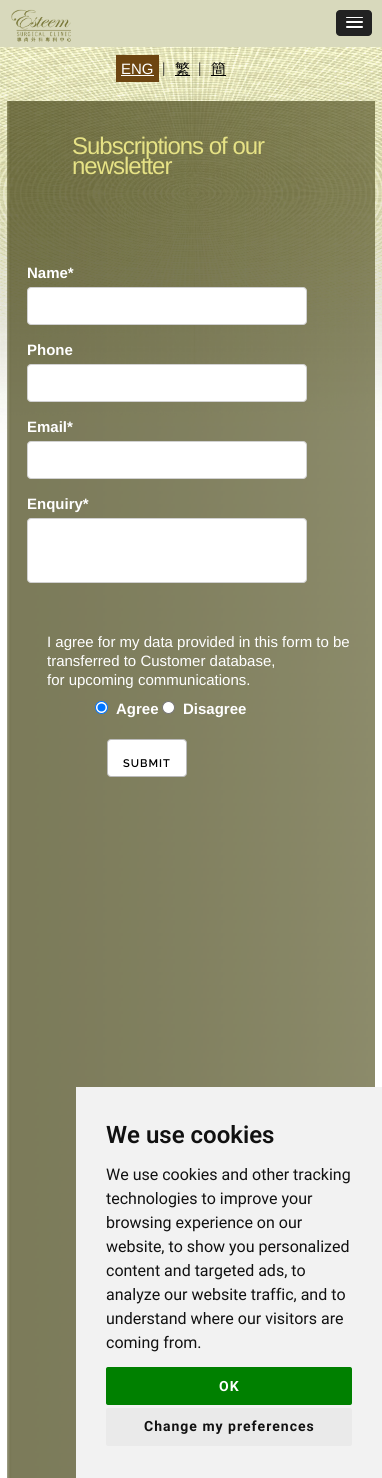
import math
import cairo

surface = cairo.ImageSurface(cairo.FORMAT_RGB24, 382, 1478)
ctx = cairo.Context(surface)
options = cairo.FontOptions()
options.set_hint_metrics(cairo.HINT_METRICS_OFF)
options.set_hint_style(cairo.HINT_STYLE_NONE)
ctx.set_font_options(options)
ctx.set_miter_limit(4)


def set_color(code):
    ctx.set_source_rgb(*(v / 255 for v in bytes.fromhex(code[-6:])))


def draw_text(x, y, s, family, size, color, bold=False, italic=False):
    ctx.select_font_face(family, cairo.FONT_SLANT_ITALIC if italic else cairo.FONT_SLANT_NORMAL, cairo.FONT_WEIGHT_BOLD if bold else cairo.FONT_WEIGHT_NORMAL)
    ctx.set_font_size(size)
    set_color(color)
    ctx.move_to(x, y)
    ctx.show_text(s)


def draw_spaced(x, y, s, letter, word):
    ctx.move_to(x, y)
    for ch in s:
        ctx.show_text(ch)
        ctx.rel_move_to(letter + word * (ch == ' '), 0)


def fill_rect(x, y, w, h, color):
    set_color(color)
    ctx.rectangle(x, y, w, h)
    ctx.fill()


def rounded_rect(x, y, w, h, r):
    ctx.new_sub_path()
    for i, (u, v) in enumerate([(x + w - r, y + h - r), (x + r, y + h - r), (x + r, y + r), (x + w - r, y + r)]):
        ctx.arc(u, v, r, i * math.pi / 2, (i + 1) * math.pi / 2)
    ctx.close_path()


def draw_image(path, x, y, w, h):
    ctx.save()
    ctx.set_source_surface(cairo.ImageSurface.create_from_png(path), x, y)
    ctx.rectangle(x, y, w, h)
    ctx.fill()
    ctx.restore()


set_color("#ffffff")
ctx.paint()
draw_image("assets/img1.png", 0, 47, 382, 393)
fill_rect(0, 0, 382, 47, "#d8d9bc")
draw_image("assets/img2.png", 11, 9, 60, 33)
set_color("#222222")
rounded_rect(336, 10, 36, 26, 4)
ctx.fill()
set_color("#1a1a1a")
rounded_rect(346, 18, 17, 1, 0.5)
ctx.fill()
set_color("#ffffff")
rounded_rect(346, 17, 17, 1, 0.5)
ctx.fill()
set_color("#1a1a1a")
ctx.new_path()
ctx.move_to(346, 22.5)
ctx.curve_to(345, 24.5, 349.5, 24, 349.5, 24)
ctx.line_to(359.5, 24)
ctx.curve_to(359.5, 24, 364, 24.5, 363, 22.5)
ctx.curve_to(362, 23.5, 356, 23, 354.5, 23)
ctx.curve_to(353, 23, 347, 23.5, 346, 22.5)
ctx.close_path()
ctx.fill()
set_color("#ffffff")
rounded_rect(346, 21, 17, 2, 1)
ctx.fill()
set_color("#1a1a1a")
ctx.new_path()
ctx.move_to(346, 27.5)
ctx.curve_to(345, 29.5, 349.5, 29, 349.5, 29)
ctx.line_to(359.5, 29)
ctx.curve_to(359.5, 29, 364, 29.5, 363, 27.5)
ctx.curve_to(362, 28.5, 356, 28, 354.5, 28)
ctx.curve_to(353, 28, 347, 28.5, 346, 27.5)
ctx.close_path()
ctx.fill()
set_color("#ffffff")
rounded_rect(346, 26, 17, 2, 1)
ctx.fill()
fill_rect(116, 55, 43, 27, "#6d4511")
draw_text(121, 74, "ENG", "Liberation Sans", 15, "#ffffff")
fill_rect(121, 75, 33, 1, "#ffffff")
draw_text(162, 74, "|", "Raleway", 15, "#222222")
fill_rect(175, 75, 15, 1, "#000000")
draw_text(175, 74, "繁", "WenQuanYi Zen Hei Medium", 15, "#000000")
draw_text(198, 74, "|", "Raleway", 15, "#222222")
fill_rect(211, 75, 15, 1, "#000000")
draw_text(211, 74, "簡", "WenQuanYi Zen Hei Medium", 15, "#000000")
draw_image("assets/img3.png", 7, 101, 368, 1377)
ctx.select_font_face("Liberation Sans")
ctx.set_font_size(24)
set_color("#e6e285")
draw_spaced(72, 154, "Subscriptions of our", -1, 0)
draw_spaced(72, 174, "newsletter", -1, 0)
draw_text(27, 278, "Name*", "Liberation Sans", 15, "#ffffff", bold=True)
rounded_rect(27.5, 287.5, 279, 37, 3.5)
ctx.fill_preserve()
set_color("#d1d1d1")
ctx.set_line_width(1)
ctx.stroke()
draw_text(27, 355, "Phone", "Liberation Sans", 15, "#ffffff", bold=True)
rounded_rect(27.5, 364.5, 279, 37, 3.5)
ctx.fill_preserve()
set_color("#d1d1d1")
ctx.stroke()
draw_text(27, 432, "Email*", "Liberation Sans", 15, "#ffffff", bold=True)
rounded_rect(27.5, 441.5, 279, 37, 3.5)
ctx.fill_preserve()
set_color("#d1d1d1")
ctx.stroke()
draw_text(27, 509, "Enquiry*", "Liberation Sans", 15, "#ffffff", bold=True)
rounded_rect(27.5, 518.5, 279, 64, 3.5)
ctx.fill_preserve()
set_color("#d1d1d1")
ctx.stroke()
draw_text(47, 647, "I agree for my data provided in this form to be", "Liberation Sans", 15, "#ffffff")
draw_text(47, 666, "transferred to Customer database,", "Liberation Sans", 15, "#ffffff")
draw_text(47, 685, "for upcoming communications.", "Liberation Sans", 15, "#ffffff")
ctx.new_path()
ctx.arc(101.5, 707.5, 6, 0, 2 * math.pi)
ctx.fill_preserve()
set_color("#0075ff")
ctx.stroke()
ctx.arc(101.5, 707.5, 4, 0, 2 * math.pi)
ctx.fill()
draw_text(116, 714, "Agree", "Liberation Sans", 15, "#ffffff", bold=True)
ctx.new_path()
ctx.arc(168.5, 707.5, 6, 0, 2 * math.pi)
ctx.fill_preserve()
set_color("#767676")
ctx.stroke()
draw_text(183, 714, "Disagree", "Liberation Sans", 15, "#ffffff", bold=True)
rounded_rect(107.5, 739.5, 79, 37, 3.5)
ctx.fill_preserve()
set_color("#bbbbbb")
ctx.stroke()
ctx.select_font_face("Raleway SemiBold")
ctx.set_font_size(11)
set_color("#000000")
draw_spaced(123, 767, "SUBMIT", 1, 0)
fill_rect(76, 1087, 306, 391, "#f2f2f2")
draw_text(106, 1143, "We use cookies", "Roboto SemiBold", 24, "#111111")
draw_text(106, 1180, "We use cookies and other tracking", "Roboto", 16, "#111111")
draw_text(106, 1204, "technologies to improve your", "Roboto", 16, "#111111")
draw_text(106, 1228, "browsing experience on our", "Roboto", 16, "#111111")
draw_text(106, 1252, "website, to show you personalized", "Roboto", 16, "#111111")
draw_text(106, 1276, "content and targeted ads, to", "Roboto", 16, "#111111")
draw_text(106, 1300, "analyze our website traffic, and to", "Roboto", 16, "#111111")
draw_text(106, 1324, "understand where our visitors are", "Roboto", 16, "#111111")
draw_text(106, 1348, "coming from.", "Roboto", 16, "#111111")
set_color("#008000")
rounded_rect(106, 1367, 246, 38, 2)
ctx.fill()
ctx.select_font_face("Roboto", cairo.FONT_SLANT_NORMAL, cairo.FONT_WEIGHT_BOLD)
ctx.set_font_size(14)
set_color("#ffffff")
draw_spaced(219, 1391, "OK", 1, 0)
set_color("#eaeaea")
rounded_rect(106, 1408, 246, 38, 2)
ctx.fill()
set_color("#111111")
draw_spaced(144, 1431, "Change my preferences", 1, 0)
surface.write_to_png("output.png")
